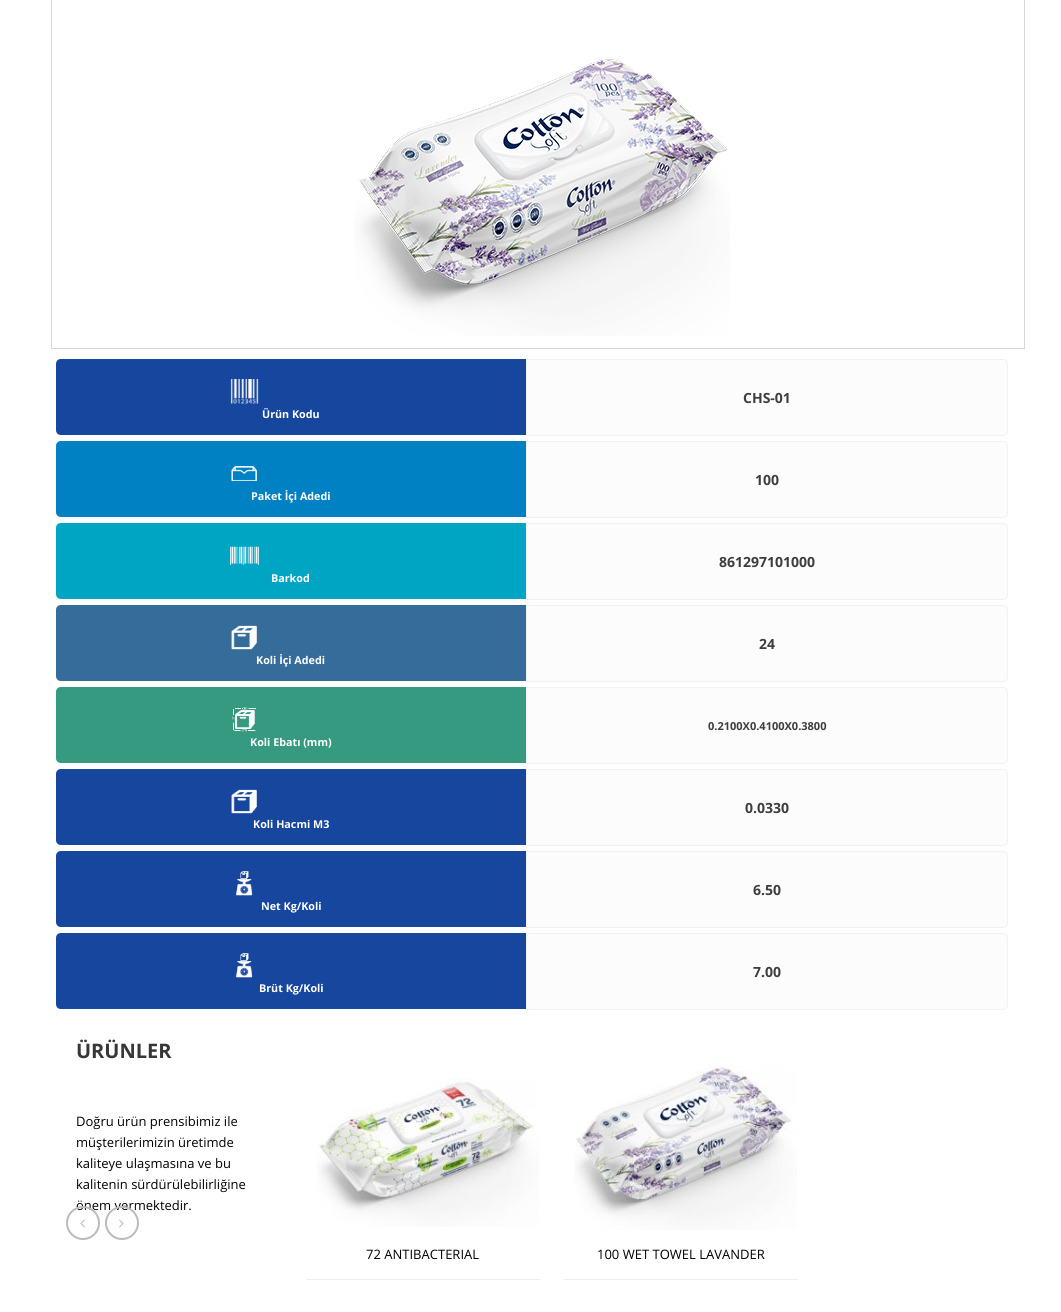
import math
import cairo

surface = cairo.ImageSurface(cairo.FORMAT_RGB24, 1061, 1312)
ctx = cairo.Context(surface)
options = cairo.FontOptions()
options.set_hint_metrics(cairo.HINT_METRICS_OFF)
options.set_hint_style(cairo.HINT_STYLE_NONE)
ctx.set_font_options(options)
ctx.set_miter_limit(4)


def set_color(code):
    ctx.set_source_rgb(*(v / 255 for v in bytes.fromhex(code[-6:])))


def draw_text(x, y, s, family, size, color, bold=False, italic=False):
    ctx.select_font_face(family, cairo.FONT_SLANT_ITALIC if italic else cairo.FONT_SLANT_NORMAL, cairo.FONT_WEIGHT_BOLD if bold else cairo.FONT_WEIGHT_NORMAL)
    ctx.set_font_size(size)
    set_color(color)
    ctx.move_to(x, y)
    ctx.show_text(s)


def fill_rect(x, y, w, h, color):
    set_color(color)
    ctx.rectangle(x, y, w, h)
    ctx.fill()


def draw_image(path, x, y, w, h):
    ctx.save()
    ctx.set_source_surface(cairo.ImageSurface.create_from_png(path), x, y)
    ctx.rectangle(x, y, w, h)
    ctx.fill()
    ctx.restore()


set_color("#ffffff")
ctx.paint()
ctx.rectangle(51.5, -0.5, 973, 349)
set_color("#d7d7d7")
ctx.set_line_width(1)
ctx.stroke()
draw_image("assets/img1.png", 354, 59, 376, 277)
set_color("#fcfcfc")
ctx.new_path()
ctx.move_to(526.5, 359.5)
ctx.line_to(1003, 359.5)
ctx.curve_to(1005.5, 359.5, 1007.5, 361.5, 1007.5, 364)
ctx.line_to(1007.5, 431)
ctx.curve_to(1007.5, 433.5, 1005.5, 435.5, 1003, 435.5)
ctx.line_to(526.5, 435.5)
ctx.close_path()
ctx.fill_preserve()
set_color("#f1f1f1")
ctx.stroke()
draw_text(743, 403, "CHS-01", "Open Sans", 14, "#3e3e3e", bold=True)
set_color("#17469e")
ctx.new_path()
ctx.move_to(61, 359)
ctx.line_to(526, 359)
ctx.line_to(526, 435)
ctx.line_to(61, 435)
ctx.curve_to(58, 435, 56, 433, 56, 430)
ctx.line_to(56, 364)
ctx.curve_to(56, 361, 58, 359, 61, 359)
ctx.close_path()
ctx.fill()
draw_image("assets/img2.png", 230, 379, 29, 25)
draw_text(262, 418, "Ürün Kodu", "Open Sans", 10.75, "#ffffff", bold=True)
set_color("#fcfcfc")
ctx.new_path()
ctx.move_to(526.5, 441.5)
ctx.line_to(1003, 441.5)
ctx.curve_to(1005.5, 441.5, 1007.5, 443.5, 1007.5, 446)
ctx.line_to(1007.5, 513)
ctx.curve_to(1007.5, 515.5, 1005.5, 517.5, 1003, 517.5)
ctx.line_to(526.5, 517.5)
ctx.close_path()
ctx.fill_preserve()
set_color("#f1f1f1")
ctx.stroke()
draw_text(755, 485, "100", "Open Sans", 14, "#3e3e3e", bold=True)
set_color("#0081c3")
ctx.new_path()
ctx.move_to(61, 441)
ctx.line_to(526, 441)
ctx.line_to(526, 517)
ctx.line_to(61, 517)
ctx.curve_to(58, 517, 56, 515, 56, 512)
ctx.line_to(56, 446)
ctx.curve_to(56, 443, 58, 441, 61, 441)
ctx.close_path()
ctx.fill()
draw_image("assets/img3.png", 231, 466, 26, 15)
draw_text(251, 500, "Paket İçi Adedi", "Open Sans", 10.75, "#ffffff", bold=True)
set_color("#fcfcfc")
ctx.new_path()
ctx.move_to(526.5, 523.5)
ctx.line_to(1003, 523.5)
ctx.curve_to(1005.5, 523.5, 1007.5, 525.5, 1007.5, 528)
ctx.line_to(1007.5, 595)
ctx.curve_to(1007.5, 597.5, 1005.5, 599.5, 1003, 599.5)
ctx.line_to(526.5, 599.5)
ctx.close_path()
ctx.fill_preserve()
set_color("#f1f1f1")
ctx.stroke()
draw_text(719, 567, "861297101000", "Open Sans", 14, "#3e3e3e", bold=True)
set_color("#00a5c3")
ctx.new_path()
ctx.move_to(61, 523)
ctx.line_to(526, 523)
ctx.line_to(526, 599)
ctx.line_to(61, 599)
ctx.curve_to(58, 599, 56, 597, 56, 594)
ctx.line_to(56, 528)
ctx.curve_to(56, 525, 58, 523, 61, 523)
ctx.close_path()
ctx.fill()
draw_image("assets/img4.png", 230, 546, 29, 19)
draw_text(271, 582, "Barkod", "Open Sans", 10.75, "#ffffff", bold=True)
set_color("#fcfcfc")
ctx.new_path()
ctx.move_to(526.5, 605.5)
ctx.line_to(1003, 605.5)
ctx.curve_to(1005.5, 605.5, 1007.5, 607.5, 1007.5, 610)
ctx.line_to(1007.5, 677)
ctx.curve_to(1007.5, 679.5, 1005.5, 681.5, 1003, 681.5)
ctx.line_to(526.5, 681.5)
ctx.close_path()
ctx.fill_preserve()
set_color("#f1f1f1")
ctx.stroke()
draw_text(759, 649, "24", "Open Sans", 14, "#3e3e3e", bold=True)
set_color("#366c9a")
ctx.new_path()
ctx.move_to(61, 605)
ctx.line_to(526, 605)
ctx.line_to(526, 681)
ctx.line_to(61, 681)
ctx.curve_to(58, 681, 56, 679, 56, 676)
ctx.line_to(56, 610)
ctx.curve_to(56, 607, 58, 605, 61, 605)
ctx.close_path()
ctx.fill()
draw_image("assets/img5.png", 231, 625, 26, 25)
draw_text(256, 664, "Koli İçi Adedi", "Open Sans", 10.75, "#ffffff", bold=True)
set_color("#fcfcfc")
ctx.new_path()
ctx.move_to(526.5, 687.5)
ctx.line_to(1003, 687.5)
ctx.curve_to(1005.5, 687.5, 1007.5, 689.5, 1007.5, 692)
ctx.line_to(1007.5, 759)
ctx.curve_to(1007.5, 761.5, 1005.5, 763.5, 1003, 763.5)
ctx.line_to(526.5, 763.5)
ctx.close_path()
ctx.fill_preserve()
set_color("#f1f1f1")
ctx.stroke()
draw_text(708, 730, "0.2100X0.4100X0.3800", "Open Sans", 11, "#3e3e3e", bold=True)
set_color("#369a81")
ctx.new_path()
ctx.move_to(61, 687)
ctx.line_to(526, 687)
ctx.line_to(526, 763)
ctx.line_to(61, 763)
ctx.curve_to(58, 763, 56, 761, 56, 758)
ctx.line_to(56, 692)
ctx.curve_to(56, 689, 58, 687, 61, 687)
ctx.close_path()
ctx.fill()
draw_image("assets/img6.png", 232, 707, 24, 25)
draw_text(250, 746, "Koli Ebatı (mm)", "Open Sans", 10.75, "#ffffff", bold=True)
set_color("#fcfcfc")
ctx.new_path()
ctx.move_to(526.5, 769.5)
ctx.line_to(1003, 769.5)
ctx.curve_to(1005.5, 769.5, 1007.5, 771.5, 1007.5, 774)
ctx.line_to(1007.5, 841)
ctx.curve_to(1007.5, 843.5, 1005.5, 845.5, 1003, 845.5)
ctx.line_to(526.5, 845.5)
ctx.close_path()
ctx.fill_preserve()
set_color("#f1f1f1")
ctx.stroke()
draw_text(745, 813, "0.0330", "Open Sans", 14, "#3e3e3e", bold=True)
set_color("#17469e")
ctx.new_path()
ctx.move_to(61, 769)
ctx.line_to(526, 769)
ctx.line_to(526, 845)
ctx.line_to(61, 845)
ctx.curve_to(58, 845, 56, 843, 56, 840)
ctx.line_to(56, 774)
ctx.curve_to(56, 771, 58, 769, 61, 769)
ctx.close_path()
ctx.fill()
draw_image("assets/img7.png", 231, 789, 26, 25)
draw_text(253, 828, "Koli Hacmi M3", "Open Sans", 10.75, "#ffffff", bold=True)
set_color("#fcfcfc")
ctx.new_path()
ctx.move_to(526.5, 851.5)
ctx.line_to(1003, 851.5)
ctx.curve_to(1005.5, 851.5, 1007.5, 853.5, 1007.5, 856)
ctx.line_to(1007.5, 923)
ctx.curve_to(1007.5, 925.5, 1005.5, 927.5, 1003, 927.5)
ctx.line_to(526.5, 927.5)
ctx.close_path()
ctx.fill_preserve()
set_color("#f1f1f1")
ctx.stroke()
draw_text(753, 895, "6.50", "Open Sans", 14, "#3e3e3e", bold=True)
set_color("#17469e")
ctx.new_path()
ctx.move_to(61, 851)
ctx.line_to(526, 851)
ctx.line_to(526, 927)
ctx.line_to(61, 927)
ctx.curve_to(58, 927, 56, 925, 56, 922)
ctx.line_to(56, 856)
ctx.curve_to(56, 853, 58, 851, 61, 851)
ctx.close_path()
ctx.fill()
draw_image("assets/img8.png", 236, 871, 17, 25)
draw_text(261, 910, "Net Kg/Koli", "Open Sans", 10.75, "#ffffff", bold=True)
set_color("#fcfcfc")
ctx.new_path()
ctx.move_to(526.5, 933.5)
ctx.line_to(1003, 933.5)
ctx.curve_to(1005.5, 933.5, 1007.5, 935.5, 1007.5, 938)
ctx.line_to(1007.5, 1005)
ctx.curve_to(1007.5, 1007.5, 1005.5, 1009.5, 1003, 1009.5)
ctx.line_to(526.5, 1009.5)
ctx.close_path()
ctx.fill_preserve()
set_color("#f1f1f1")
ctx.stroke()
draw_text(753, 977, "7.00", "Open Sans", 14, "#3e3e3e", bold=True)
set_color("#17469e")
ctx.new_path()
ctx.move_to(61, 933)
ctx.line_to(526, 933)
ctx.line_to(526, 1009)
ctx.line_to(61, 1009)
ctx.curve_to(58, 1009, 56, 1007, 56, 1004)
ctx.line_to(56, 938)
ctx.curve_to(56, 935, 58, 933, 61, 933)
ctx.close_path()
ctx.fill()
draw_image("assets/img8.png", 236, 953, 17, 25)
draw_text(259, 992, "Brüt Kg/Koli", "Open Sans", 10.75, "#ffffff", bold=True)
draw_text(76, 1058, "ÜRÜNLER", "Open Sans", 20, "#373737", bold=True)
draw_text(76, 1126, "Doğru ürün prensibimiz ile", "Open Sans", 13, "#000000")
draw_text(76, 1147, "müşterilerimizin üretimde", "Open Sans", 13, "#000000")
draw_text(76, 1168, "kaliteye ulaşmasına ve bu", "Open Sans", 13, "#000000")
draw_text(76, 1189, "kalitenin sürdürülebilirliğine", "Open Sans", 13, "#000000")
draw_text(76, 1210, "önem vermektedir.", "Open Sans", 13, "#000000")
ctx.new_path()
ctx.arc(83, 1223, 16, 0, 2 * math.pi)
set_color("#bbbbbb")
ctx.set_line_width(2)
ctx.stroke()
draw_image("assets/img9.png", 80, 1219, 5, 9)
ctx.arc(122, 1223, 16, 0, 2 * math.pi)
ctx.stroke()
draw_image("assets/img10.png", 119, 1219, 5, 9)
draw_image("assets/img11.png", 317, 1078, 222, 149)
fill_rect(306, 1279, 234, 1, "#eeeeee")
draw_text(366, 1259, "72 ANTIBACTERIAL", "Open Sans", 13, "#000000")
draw_image("assets/img12.png", 574, 1063, 223, 167)
fill_rect(564, 1279, 234, 1, "#eeeeee")
draw_text(597, 1259, "100 WET TOWEL LAVANDER", "Open Sans", 13, "#000000")
surface.write_to_png("output.png")
